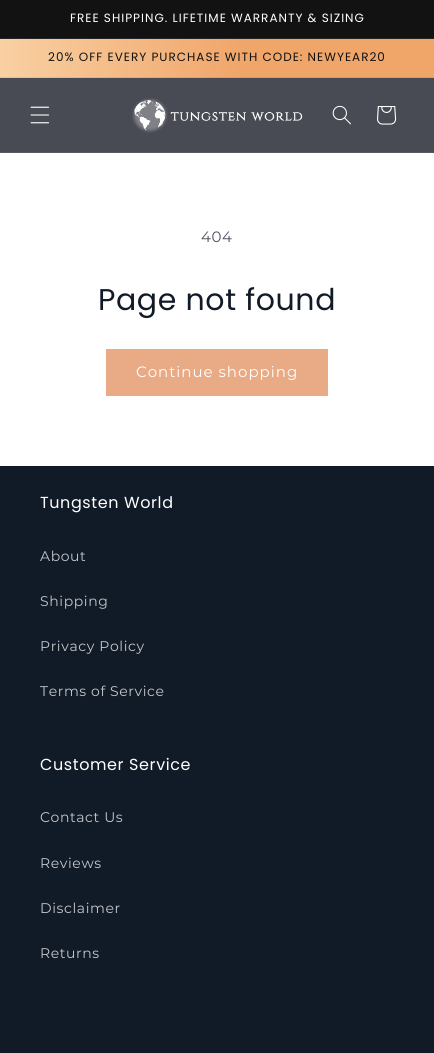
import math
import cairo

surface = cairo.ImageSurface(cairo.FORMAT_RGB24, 434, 1053)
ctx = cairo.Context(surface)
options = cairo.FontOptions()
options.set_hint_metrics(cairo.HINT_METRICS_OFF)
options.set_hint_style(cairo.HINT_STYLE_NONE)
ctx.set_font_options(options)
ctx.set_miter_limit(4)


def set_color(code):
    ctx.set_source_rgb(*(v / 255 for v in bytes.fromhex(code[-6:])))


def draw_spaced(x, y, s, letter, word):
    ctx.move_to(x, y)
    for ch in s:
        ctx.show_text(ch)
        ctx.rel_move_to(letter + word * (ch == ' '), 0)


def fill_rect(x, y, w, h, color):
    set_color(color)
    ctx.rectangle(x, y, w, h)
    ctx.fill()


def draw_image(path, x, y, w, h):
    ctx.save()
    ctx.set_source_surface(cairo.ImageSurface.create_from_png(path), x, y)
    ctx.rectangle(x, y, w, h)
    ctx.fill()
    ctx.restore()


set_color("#ffffff")
ctx.paint()
fill_rect(0, 0, 434, 38, "#121212")
fill_rect(0, 38, 434, 1, "#252525")
ctx.select_font_face("Poppins")
ctx.set_font_size(12)
set_color("#ffffff")
draw_spaced(70, 22, "FREE SHIPPING. LIFETIME WARRANTY & SIZING", 1, 0)
gradient = cairo.LinearGradient(434, 527, 0, 527)
gradient.add_color_stop_rgba(0.43, 0.941, 0.647, 0.412, 1)
gradient.add_color_stop_rgba(1, 0.976, 0.816, 0.639, 1)
ctx.set_source(gradient)
ctx.rectangle(0, 39, 434, 38)
ctx.fill()
gradient = cairo.LinearGradient(434, 527, 0, 527)
gradient.add_color_stop_rgba(0.43, 0.871, 0.6, 0.384, 1)
gradient.add_color_stop_rgba(1, 0.906, 0.757, 0.592, 1)
ctx.set_source(gradient)
ctx.rectangle(0, 77, 434, 1)
ctx.fill()
set_color("#121212")
draw_spaced(48, 61, "20% OFF EVERY PURCHASE WITH CODE: NEWYEAR20", 1, 0)
fill_rect(0, 78, 434, 74, "#494b54")
fill_rect(0, 152, 434, 1, "#585962")
draw_image("assets/img1.png", 30, 106, 20, 18)
draw_image("assets/img2.png", 132, 98, 171, 35)
draw_image("assets/img3.png", 332, 105, 19, 20)
draw_image("assets/img4.png", 377, 106, 20, 19)
ctx.select_font_face("Montserrat")
ctx.set_font_size(15)
set_color("#4d535d")
draw_spaced(201, 242, "404", 0.6, 0)
ctx.select_font_face("Poppins")
ctx.set_font_size(30)
set_color("#111a27")
draw_spaced(98, 310, "Page not found", 0.6, 0)
fill_rect(106, 349, 222, 47, "#e9aa86")
ctx.select_font_face("Montserrat")
ctx.set_font_size(15)
set_color("#ffffff")
draw_spaced(136, 377, "Continue shopping", 1, 0)
fill_rect(0, 466, 434, 587, "#111a27")
ctx.select_font_face("Poppins")
ctx.set_font_size(16)
set_color("#ffffff")
draw_spaced(40, 508, "Tungsten World", 0.6, 0)
ctx.select_font_face("Montserrat")
ctx.set_font_size(14)
set_color("#c4c6c9")
draw_spaced(40, 561, "About", 0.6, 0)
draw_spaced(40, 606, "Shipping", 0.6, 0)
draw_spaced(40, 651, "Privacy Policy", 0.6, 0)
draw_spaced(40, 696, "Terms of Service", 0.6, 0)
ctx.select_font_face("Poppins")
ctx.set_font_size(16)
set_color("#ffffff")
draw_spaced(40, 770, "Customer Service", 0.6, 0)
ctx.select_font_face("Montserrat")
ctx.set_font_size(14)
set_color("#c4c6c9")
draw_spaced(40, 822, "Contact Us", 0.6, 0)
draw_spaced(40, 868, "Reviews", 0.6, 0)
draw_spaced(40, 913, "Disclaimer", 0.6, 0)
draw_spaced(40, 958, "Returns", 0.6, 0)
surface.write_to_png("output.png")
